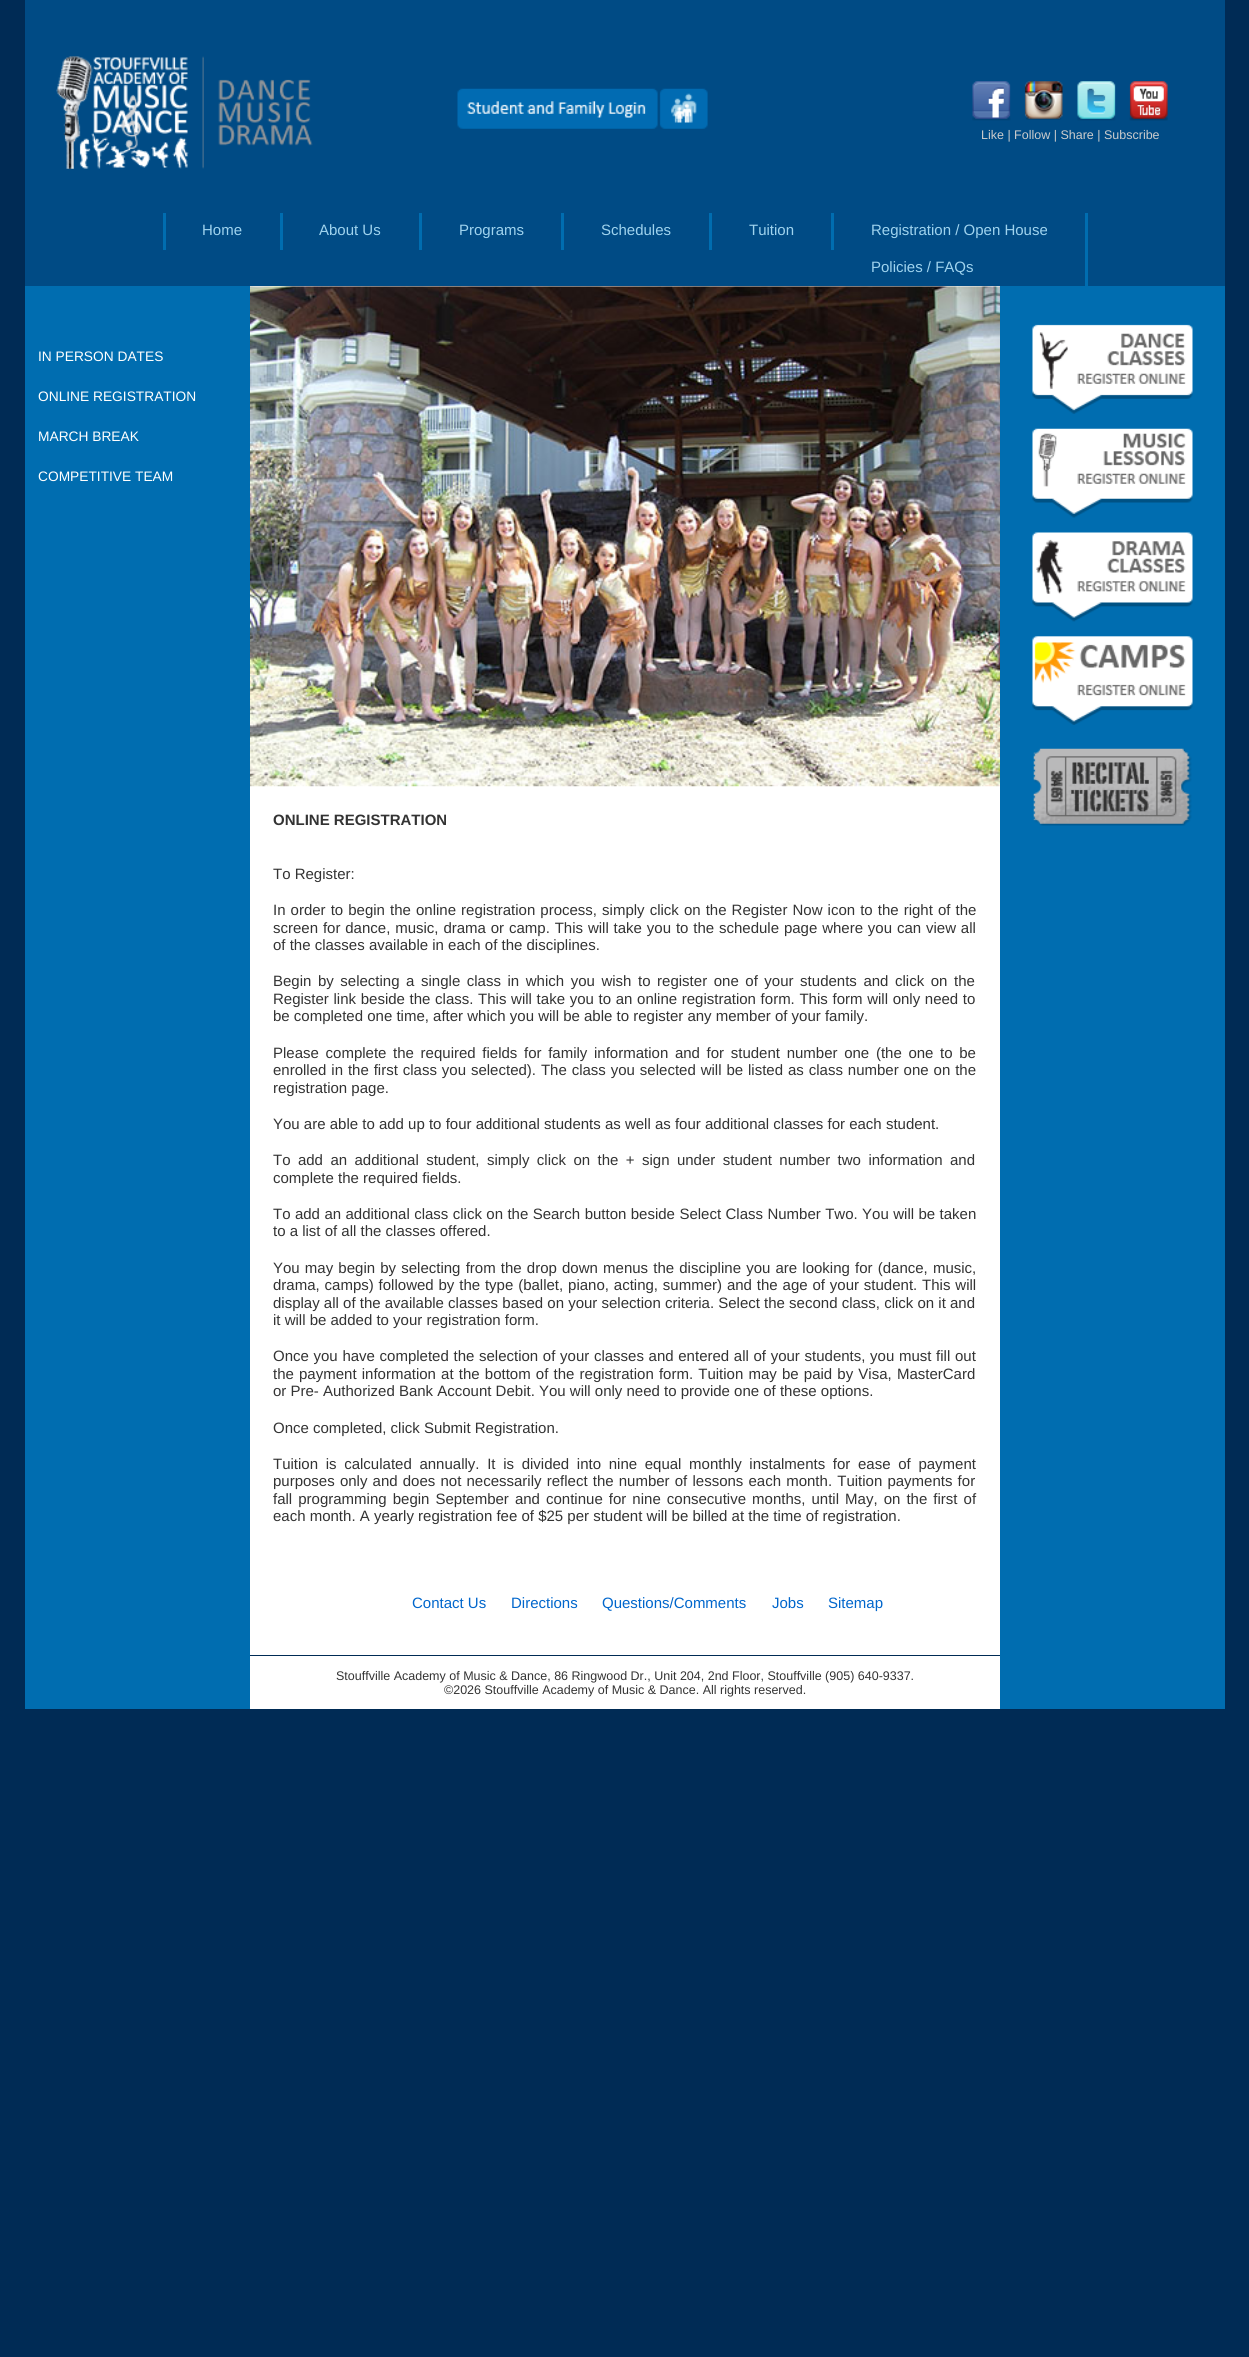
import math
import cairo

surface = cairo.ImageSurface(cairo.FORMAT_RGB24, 1249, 2357)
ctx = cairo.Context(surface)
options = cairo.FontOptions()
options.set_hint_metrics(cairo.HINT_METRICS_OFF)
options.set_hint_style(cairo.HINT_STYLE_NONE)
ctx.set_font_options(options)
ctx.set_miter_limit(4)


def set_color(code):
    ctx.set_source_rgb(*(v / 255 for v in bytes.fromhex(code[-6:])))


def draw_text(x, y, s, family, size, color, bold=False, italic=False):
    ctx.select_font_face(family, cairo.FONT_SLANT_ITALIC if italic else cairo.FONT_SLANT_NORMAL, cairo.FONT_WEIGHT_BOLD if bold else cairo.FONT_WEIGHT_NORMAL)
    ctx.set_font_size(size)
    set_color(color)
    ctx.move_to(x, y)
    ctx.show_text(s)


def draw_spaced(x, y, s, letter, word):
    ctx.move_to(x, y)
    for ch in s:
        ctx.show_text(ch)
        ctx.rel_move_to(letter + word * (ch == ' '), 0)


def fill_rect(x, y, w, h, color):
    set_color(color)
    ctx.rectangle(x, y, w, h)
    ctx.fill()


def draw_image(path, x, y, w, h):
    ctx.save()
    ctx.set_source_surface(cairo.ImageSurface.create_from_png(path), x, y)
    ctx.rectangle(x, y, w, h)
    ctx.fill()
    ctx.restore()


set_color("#002b55")
ctx.paint()
fill_rect(25, 0, 1200, 286, "#004b85")
draw_image("assets/img1.png", 56, 56, 257, 113)
draw_image("assets/img2.png", 457, 88, 251, 41)
draw_image("assets/img3.png", 972, 81, 39, 40)
draw_image("assets/img4.png", 1024, 81, 39, 39)
draw_image("assets/img5.png", 1077, 81, 39, 40)
draw_image("assets/img6.png", 1129, 81, 39, 40)
draw_text(981, 139, "Like | Follow | Share | Subscribe", "Liberation Sans", 12.5, "#cccccc")
fill_rect(280, 213, 3, 37, "#006db0")
fill_rect(163, 213, 3, 37, "#006db0")
draw_text(202, 235, "Home", "Liberation Sans", 15, "#9fd3ee")
fill_rect(419, 213, 3, 37, "#006db0")
draw_text(319, 235, "About Us", "Liberation Sans", 15, "#9fd3ee")
fill_rect(561, 213, 3, 37, "#006db0")
draw_text(459, 235, "Programs", "Liberation Sans", 15, "#9fd3ee")
fill_rect(709, 213, 3, 37, "#006db0")
draw_text(601, 235, "Schedules", "Liberation Sans", 15, "#9fd3ee")
fill_rect(831, 213, 3, 37, "#006db0")
draw_text(749, 235, "Tuition", "Liberation Sans", 15, "#9fd3ee")
fill_rect(1085, 213, 3, 73, "#006db0")
draw_text(871, 235, "Registration / Open House", "Liberation Sans", 15, "#9fd3ee")
draw_text(871, 272, "Policies / FAQs", "Liberation Sans", 15, "#9fd3ee")
fill_rect(25, 286, 225, 1423, "#006db0")
draw_text(38, 361, "IN PERSON DATES", "Liberation Sans", 13.75, "#ffffff")
draw_text(38, 401, "ONLINE REGISTRATION", "Liberation Sans", 13.75, "#ffffff")
draw_text(38, 441, "MARCH BREAK", "Liberation Sans", 13.75, "#ffffff")
draw_text(38, 481, "COMPETITIVE TEAM", "Liberation Sans", 13.75, "#ffffff")
fill_rect(1000, 286, 225, 1423, "#006db0")
draw_image("assets/img7.png", 1032, 324, 161, 90)
draw_image("assets/img8.png", 1032, 428, 161, 90)
draw_image("assets/img9.png", 1032, 532, 161, 90)
draw_image("assets/img10.png", 1032, 636, 161, 89)
draw_image("assets/img11.png", 1033, 748, 159, 78)
fill_rect(250, 286, 750, 1423, "#ffffff")
draw_image("assets/img12.png", 250, 286, 750, 501)
draw_text(273, 825, "ONLINE REGISTRATION", "Liberation Sans", 15, "#333333", bold=True)
draw_text(273, 879, "To Register:", "Liberation Sans", 15, "#333333")
draw_spaced(273, 915, "In order to begin the online registration process, simply click on the Register Now icon to the right of the", 0, 0.9)
draw_spaced(273, 933, "screen for dance, music, drama or camp. This will take you to the schedule page where you can view all", 0, 0.7)
draw_text(273, 950, "of the classes available in each of the disciplines.", "Liberation Sans", 15, "#333333")
draw_spaced(273, 986, "Begin by selecting a single class in which you wish to register one of your students and click on the", 0, 2.4)
draw_spaced(273, 1004, "Register link beside the class. This will take you to an online registration form. This form will only need to", 0, 0.5)
draw_text(273, 1021, "be completed one time, after which you will be able to register any member of your family.", "Liberation Sans", 15, "#333333")
draw_spaced(273, 1058, "Please complete the required fields for family information and for student number one (the one to be", 0, 2.5)
draw_spaced(273, 1075, "enrolled in the first class you selected). The class you selected will be listed as class number one on the", 0, 0.75)
draw_text(273, 1093, "registration page.", "Liberation Sans", 15, "#333333")
draw_text(273, 1129, "You are able to add up to four additional students as well as four additional classes for each student.", "Liberation Sans", 15, "#333333")
draw_spaced(273, 1165, "To add an additional student, simply click on the + sign under student number two information and", 0, 3.25)
draw_text(273, 1183, "complete the required fields.", "Liberation Sans", 15, "#333333")
draw_spaced(273, 1219, "To add an additional class click on the Search button beside Select Class Number Two. You will be taken", 0, 0.25)
draw_text(273, 1236, "to a list of all the classes offered.", "Liberation Sans", 15, "#333333")
draw_spaced(273, 1273, "You may begin by selecting from the drop down menus the discipline you are looking for (dance, music,", 0, 1)
draw_spaced(273, 1290, "drama, camps) followed by the type (ballet, piano, acting, summer) and the age of your student. This will", 0, 0.7)
draw_text(273, 1308, "display all of the available classes based on your selection criteria. Select the second class, click on it and", "Liberation Sans", 15, "#333333")
draw_text(273, 1325, "it will be added to your registration form.", "Liberation Sans", 15, "#333333")
draw_spaced(273, 1361, "Once you have completed the selection of your classes and entered all of your students, you must fill out", 0, 0.5)
draw_spaced(273, 1379, "the payment information at the bottom of the registration form. Tuition may be paid by Visa, MasterCard", 0, 1)
draw_text(273, 1396, "or Pre- Authorized Bank Account Debit. You will only need to provide one of these options.", "Liberation Sans", 15, "#333333")
draw_text(273, 1433, "Once completed, click Submit Registration.", "Liberation Sans", 15, "#333333")
draw_spaced(273, 1469, "Tuition is calculated annually. It is divided into nine equal monthly instalments for ease of payment", 0, 3.5)
draw_spaced(273, 1486, "purposes only and does not necessarily reflect the number of lessons each month. Tuition payments for", 0, 1)
draw_spaced(273, 1504, "fall programming begin September and continue for nine consecutive months, until May, on the first of", 0, 1.9)
draw_text(273, 1521, "each month. A yearly registration fee of $25 per student will be billed at the time of registration.", "Liberation Sans", 15, "#333333")
draw_text(412, 1608, "Contact Us", "Liberation Sans", 15, "#0066cc")
draw_text(511, 1608, "Directions", "Liberation Sans", 15, "#0066cc")
draw_text(602, 1608, "Questions/Comments", "Liberation Sans", 15, "#0066cc")
draw_text(772, 1608, "Jobs", "Liberation Sans", 15, "#0066cc")
draw_text(828, 1608, "Sitemap", "Liberation Sans", 15, "#0066cc")
fill_rect(250, 1655, 750, 1, "#002b55")
draw_text(336, 1680, "Stouffville Academy of Music & Dance, 86 Ringwood Dr., Unit 204, 2nd Floor, Stouffville (905) 640-9337.", "Liberation Sans", 12.5, "#333333")
draw_text(444, 1694, "©2026 Stouffville Academy of Music & Dance. All rights reserved.", "Liberation Sans", 12.5, "#333333")
surface.write_to_png("output.png")
